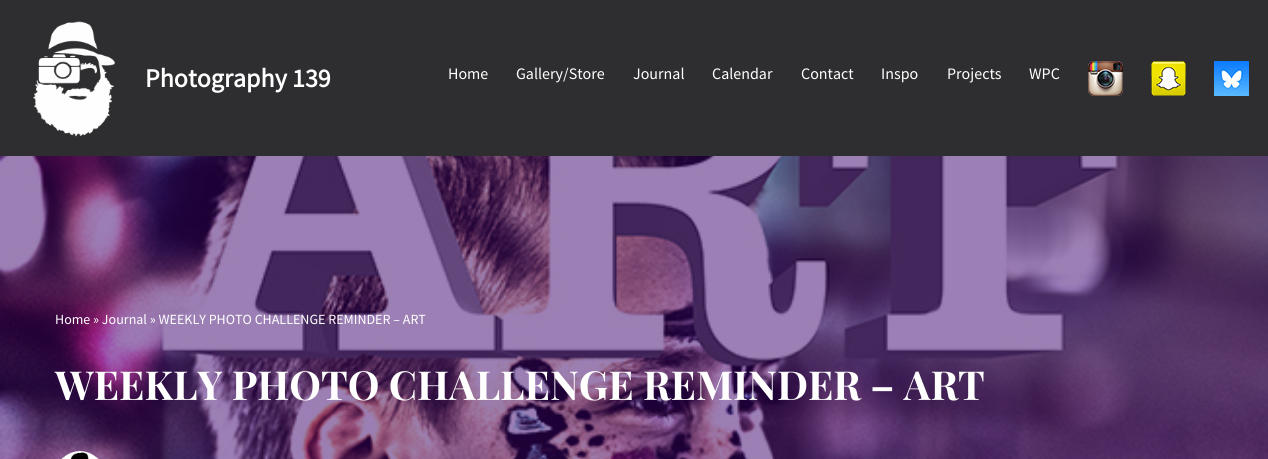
import math
import cairo

surface = cairo.ImageSurface(cairo.FORMAT_RGB24, 1268, 459)
ctx = cairo.Context(surface)
options = cairo.FontOptions()
options.set_hint_metrics(cairo.HINT_METRICS_OFF)
options.set_hint_style(cairo.HINT_STYLE_NONE)
ctx.set_font_options(options)
ctx.set_miter_limit(4)


def set_color(code):
    ctx.set_source_rgb(*(v / 255 for v in bytes.fromhex(code[-6:])))


def draw_text(x, y, s, family, size, color, bold=False, italic=False):
    ctx.select_font_face(family, cairo.FONT_SLANT_ITALIC if italic else cairo.FONT_SLANT_NORMAL, cairo.FONT_WEIGHT_BOLD if bold else cairo.FONT_WEIGHT_NORMAL)
    ctx.set_font_size(size)
    set_color(color)
    ctx.move_to(x, y)
    ctx.show_text(s)


def draw_image(path, x, y, w, h):
    ctx.save()
    ctx.set_source_surface(cairo.ImageSurface.create_from_png(path), x, y)
    ctx.rectangle(x, y, w, h)
    ctx.fill()
    ctx.restore()


set_color("#2e2d2f")
ctx.paint()
draw_image("assets/img1.png", 33, 21, 82, 116)
draw_text(145, 87, "Photography 139", "Source Sans Pro", 26, "#ffffff", bold=True)
draw_text(448, 79, "Home", "Source Sans Pro", 16, "#ffffff")
draw_text(516, 79, "Gallery/Store", "Source Sans Pro", 16, "#ffffff")
draw_text(633, 79, "Journal", "Source Sans Pro", 16, "#ffffff")
draw_text(712, 79, "Calendar", "Source Sans Pro", 16, "#ffffff")
draw_text(801, 79, "Contact", "Source Sans Pro", 16, "#ffffff")
draw_text(881, 79, "Inspo", "Source Sans Pro", 16, "#ffffff")
draw_text(947, 79, "Projects", "Source Sans Pro", 16, "#ffffff")
draw_text(1029, 79, "WPC", "Source Sans Pro", 16, "#ffffff")
draw_image("assets/img2.png", 1088, 61, 35, 35)
draw_image("assets/img3.png", 1151, 61, 35, 35)
draw_image("assets/img4.png", 1214, 61, 35, 35)
draw_image("assets/img5.png", 0, 156, 1268, 303)
draw_text(55, 324, "Home » Journal » WEEKLY PHOTO CHALLENGE REMINDER – ART", "Source Sans Pro", 14, "#ffffff")
draw_text(55, 400, "WEEKLY PHOTO CHALLENGE REMINDER – ART", "Playfair Display", 40, "#ffffff", bold=True)
draw_image("assets/img6.png", 61, 451, 38, 8)
surface.write_to_png("output.png")
